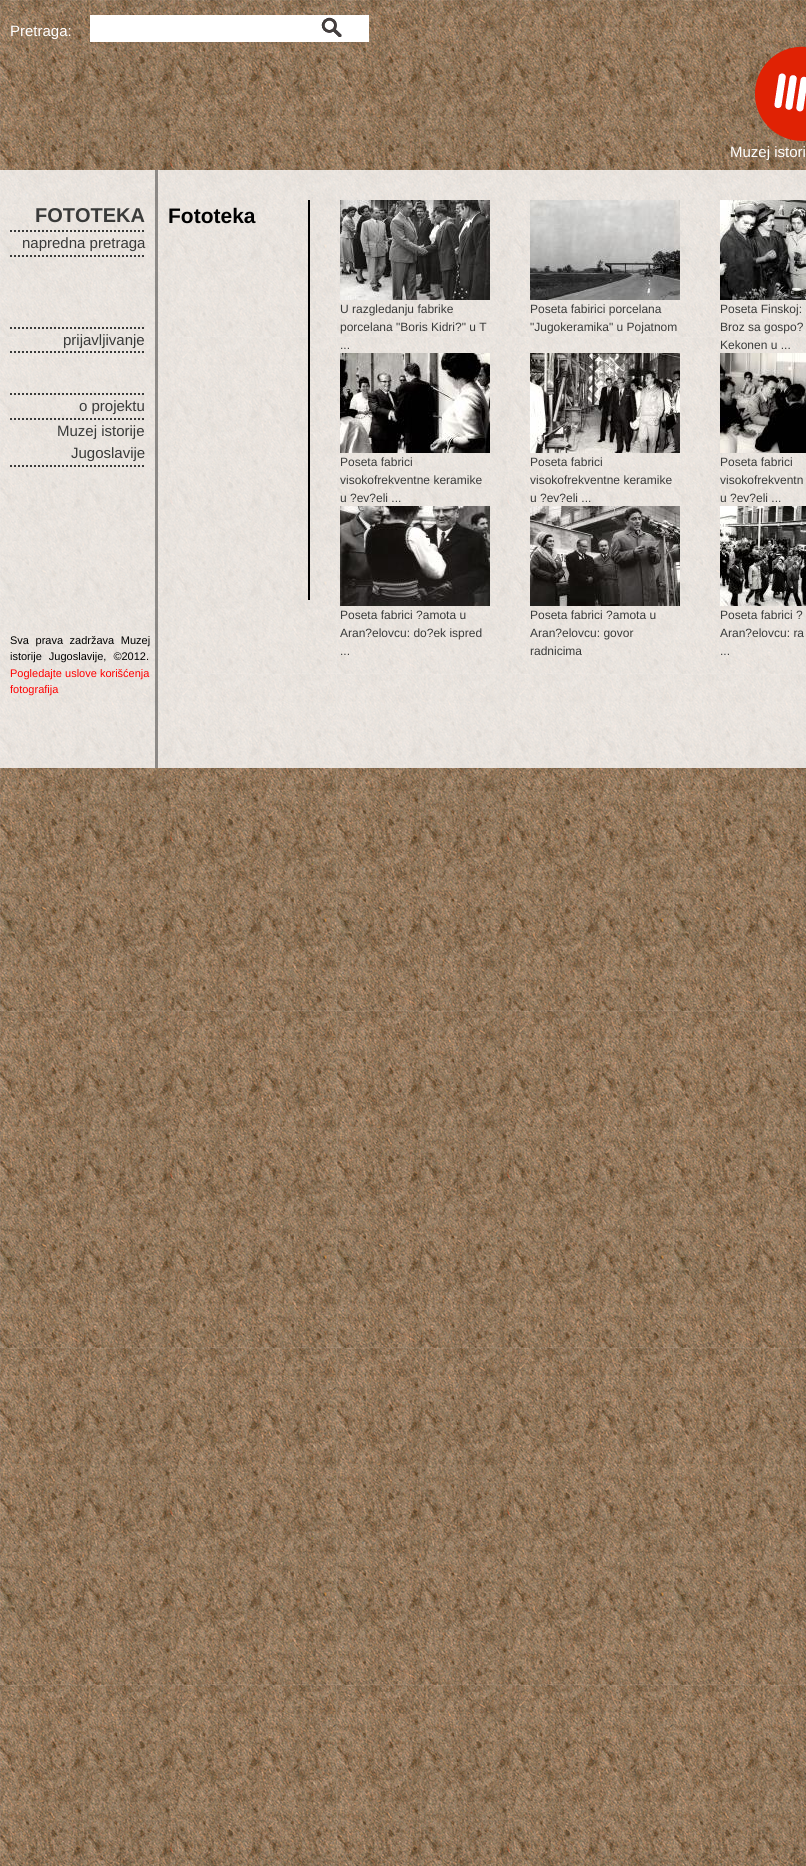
import math
import cairo

surface = cairo.ImageSurface(cairo.FORMAT_RGB24, 806, 1866)
ctx = cairo.Context(surface)
options = cairo.FontOptions()
options.set_hint_metrics(cairo.HINT_METRICS_OFF)
options.set_hint_style(cairo.HINT_STYLE_NONE)
ctx.set_font_options(options)
ctx.set_miter_limit(4)


def set_color(code):
    ctx.set_source_rgb(*(v / 255 for v in bytes.fromhex(code[-6:])))


def draw_text(x, y, s, family, size, color, bold=False, italic=False):
    ctx.select_font_face(family, cairo.FONT_SLANT_ITALIC if italic else cairo.FONT_SLANT_NORMAL, cairo.FONT_WEIGHT_BOLD if bold else cairo.FONT_WEIGHT_NORMAL)
    ctx.set_font_size(size)
    set_color(color)
    ctx.move_to(x, y)
    ctx.show_text(s)


def draw_spaced(x, y, s, letter, word):
    ctx.move_to(x, y)
    for ch in s:
        ctx.show_text(ch)
        ctx.rel_move_to(letter + word * (ch == ' '), 0)


def fill_rect(x, y, w, h, color):
    set_color(color)
    ctx.rectangle(x, y, w, h)
    ctx.fill()


def draw_image(path, x, y, w, h):
    ctx.save()
    ctx.set_source_surface(cairo.ImageSurface.create_from_png(path), x, y)
    ctx.rectangle(x, y, w, h)
    ctx.fill()
    ctx.restore()


set_color("#ffffff")
ctx.paint()
draw_image("assets/img1.png", 0, 0, 806, 1866)
draw_text(10, 36, "Pretraga:", "Liberation Sans", 15, "#ffffff")
fill_rect(90, 15, 204, 27, "#ffffff")
draw_image("assets/img2.png", 294, 15, 75, 27)
draw_image("assets/img3.png", 755, 46, 51, 95)
draw_text(730, 157, "Muzej istori", "Liberation Sans", 15, "#ffffff")
ctx.set_source_rgba(1, 1, 1, 0.8)
ctx.rectangle(0, 170, 806, 598)
ctx.fill()
ctx.set_source_rgba(0, 0, 0, 0.4)
ctx.rectangle(155, 170, 3, 598)
ctx.fill()
ctx.new_path()
ctx.move_to(10, 231)
ctx.line_to(145, 231)
set_color("#393a39")
ctx.set_dash([2, 2])
ctx.stroke()
draw_text(35, 222, "FOTOTEKA", "Liberation Sans", 20, "#393a39", bold=True)
ctx.new_path()
ctx.move_to(10, 256)
ctx.line_to(145, 256)
ctx.stroke()
draw_text(22, 248, "napredna pretraga", "Liberation Sans", 15, "#393a39")
ctx.new_path()
ctx.move_to(10, 328)
ctx.line_to(145, 328)
ctx.stroke()
ctx.new_path()
ctx.move_to(10, 352)
ctx.line_to(145, 352)
ctx.stroke()
draw_text(63, 345, "prijavljivanje", "Liberation Sans", 15, "#393a39")
ctx.new_path()
ctx.move_to(10, 394)
ctx.line_to(145, 394)
ctx.stroke()
ctx.new_path()
ctx.move_to(10, 419)
ctx.line_to(145, 419)
ctx.stroke()
draw_text(79, 411, "o projektu", "Liberation Sans", 15, "#393a39")
ctx.new_path()
ctx.move_to(10, 466)
ctx.line_to(145, 466)
ctx.stroke()
draw_text(57, 436, "Muzej istorije", "Liberation Sans", 15, "#393a39")
draw_text(71, 458, "Jugoslavije", "Liberation Sans", 15, "#393a39")
ctx.set_font_size(11)
set_color("#000000")
draw_spaced(10, 644, "Sva prava zadržava Muzej", 0, 3.5)
draw_spaced(10, 660, "istorije Jugoslavije, ©2012.", 0, 4)
draw_text(10, 677, "Pogledajte uslove korišćenja", "Liberation Sans", 11, "#ff0000")
draw_text(10, 693, "fotografija", "Liberation Sans", 11, "#ff0000")
fill_rect(308, 200, 2, 400, "#000000")
draw_text(168, 223, "Fototeka", "Liberation Sans", 21, "#000000", bold=True)
draw_image("assets/img4.png", 340, 200, 150, 100)
draw_text(340, 313, "U razgledanju fabrike", "Liberation Sans", 12, "#393a39")
draw_text(340, 331, "porcelana \"Boris Kidri?\" u T", "Liberation Sans", 12, "#393a39")
draw_text(340, 349, "...", "Liberation Sans", 12, "#393a39")
draw_image("assets/img5.png", 530, 200, 150, 100)
draw_text(530, 313, "Poseta fabirici porcelana", "Liberation Sans", 12, "#393a39")
draw_text(530, 331, "\"Jugokeramika\" u Pojatnom", "Liberation Sans", 12, "#393a39")
draw_image("assets/img6.png", 720, 200, 86, 100)
draw_text(720, 313, "Poseta Finskoj:", "Liberation Sans", 12, "#393a39")
draw_text(720, 331, "Broz sa gospo?", "Liberation Sans", 12, "#393a39")
draw_text(720, 349, "Kekonen u ...", "Liberation Sans", 12, "#393a39")
draw_image("assets/img7.png", 340, 353, 150, 100)
draw_text(340, 466, "Poseta fabrici", "Liberation Sans", 12, "#393a39")
draw_text(340, 484, "visokofrekventne keramike", "Liberation Sans", 12, "#393a39")
draw_text(340, 502, "u ?ev?eli ...", "Liberation Sans", 12, "#393a39")
draw_image("assets/img8.png", 530, 353, 150, 100)
draw_text(530, 466, "Poseta fabrici", "Liberation Sans", 12, "#393a39")
draw_text(530, 484, "visokofrekventne keramike", "Liberation Sans", 12, "#393a39")
draw_text(530, 502, "u ?ev?eli ...", "Liberation Sans", 12, "#393a39")
draw_image("assets/img9.png", 720, 353, 86, 100)
draw_text(720, 466, "Poseta fabrici", "Liberation Sans", 12, "#393a39")
draw_text(720, 484, "visokofrekventn", "Liberation Sans", 12, "#393a39")
draw_text(720, 502, "u ?ev?eli ...", "Liberation Sans", 12, "#393a39")
draw_image("assets/img10.png", 340, 506, 150, 100)
draw_text(340, 619, "Poseta fabrici ?amota u", "Liberation Sans", 12, "#393a39")
draw_text(340, 637, "Aran?elovcu: do?ek ispred", "Liberation Sans", 12, "#393a39")
draw_text(340, 655, "...", "Liberation Sans", 12, "#393a39")
draw_image("assets/img11.png", 530, 506, 150, 100)
draw_text(530, 619, "Poseta fabrici ?amota u", "Liberation Sans", 12, "#393a39")
draw_text(530, 637, "Aran?elovcu: govor", "Liberation Sans", 12, "#393a39")
draw_text(530, 655, "radnicima", "Liberation Sans", 12, "#393a39")
draw_image("assets/img12.png", 720, 506, 86, 100)
draw_text(720, 619, "Poseta fabrici ?", "Liberation Sans", 12, "#393a39")
draw_text(720, 637, "Aran?elovcu: ra", "Liberation Sans", 12, "#393a39")
draw_text(720, 655, "...", "Liberation Sans", 12, "#393a39")
surface.write_to_png("output.png")
